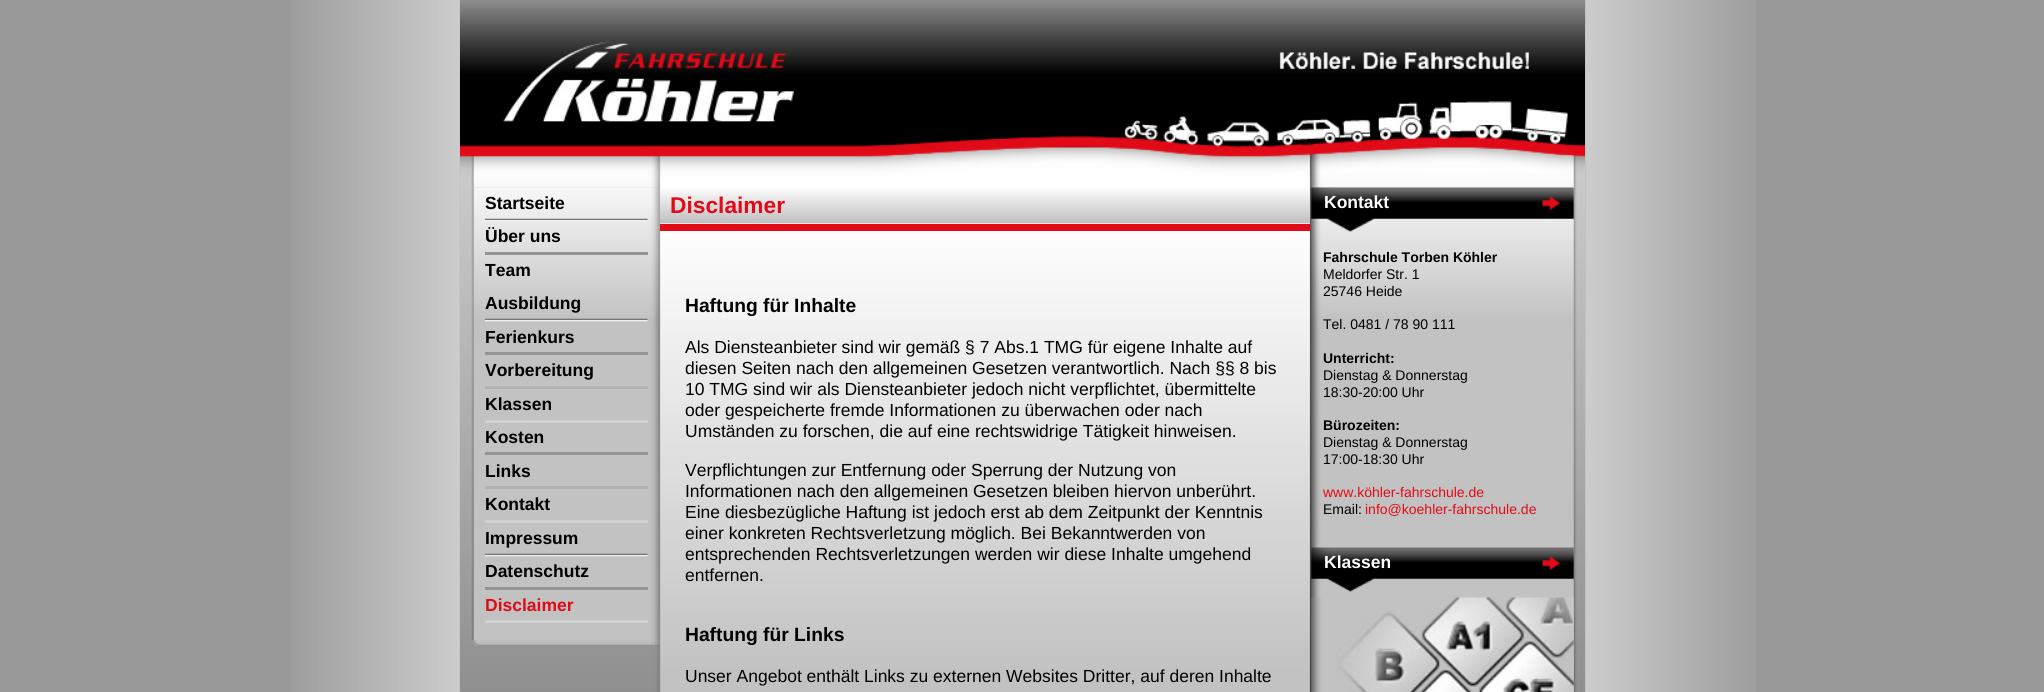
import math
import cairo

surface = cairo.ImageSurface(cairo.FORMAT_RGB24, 2044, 692)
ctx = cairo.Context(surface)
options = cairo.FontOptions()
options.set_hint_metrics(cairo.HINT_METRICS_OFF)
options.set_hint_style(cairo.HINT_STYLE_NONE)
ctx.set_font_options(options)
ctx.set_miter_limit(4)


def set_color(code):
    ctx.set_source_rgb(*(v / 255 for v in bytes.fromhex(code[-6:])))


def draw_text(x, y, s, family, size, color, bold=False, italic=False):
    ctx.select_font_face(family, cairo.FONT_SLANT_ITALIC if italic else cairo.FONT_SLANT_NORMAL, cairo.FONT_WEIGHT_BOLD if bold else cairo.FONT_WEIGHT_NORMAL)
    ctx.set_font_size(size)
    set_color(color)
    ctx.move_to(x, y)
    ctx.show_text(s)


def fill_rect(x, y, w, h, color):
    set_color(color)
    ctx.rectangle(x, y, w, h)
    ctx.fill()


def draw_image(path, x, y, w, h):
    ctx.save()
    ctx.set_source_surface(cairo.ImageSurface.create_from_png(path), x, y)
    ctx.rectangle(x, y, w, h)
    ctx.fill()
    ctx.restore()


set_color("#999999")
ctx.paint()
draw_image("assets/img1.png", 291, 0, 1465, 692)
draw_image("assets/img2.png", 460, 187, 1125, 505)
draw_image("assets/img3.png", 460, 0, 1125, 188)
draw_image("assets/img4.png", 471, 187, 189, 453)
draw_image("assets/img5.png", 485, 218, 163, 4)
draw_text(485, 209, "Startseite", "Liberation Sans", 17.5, "#000000", bold=True)
fill_rect(485, 252, 163, 3, "#949494")
draw_text(485, 242, "Über uns", "Liberation Sans", 17.5, "#000000", bold=True)
draw_text(485, 276, "Team", "Liberation Sans", 17.5, "#000000", bold=True)
draw_image("assets/img6.png", 485, 318, 163, 4)
draw_text(485, 309, "Ausbildung", "Liberation Sans", 17.5, "#000000", bold=True)
fill_rect(485, 352, 163, 3, "#949494")
draw_text(485, 343, "Ferienkurs", "Liberation Sans", 17.5, "#000000", bold=True)
fill_rect(485, 386, 163, 3, "#b2b2b2")
draw_text(485, 376, "Vorbereitung", "Liberation Sans", 17.5, "#000000", bold=True)
fill_rect(485, 420, 163, 3, "#d0d0d0")
draw_text(485, 410, "Klassen", "Liberation Sans", 17.5, "#000000", bold=True)
fill_rect(485, 452, 163, 3, "#949494")
draw_text(485, 443, "Kosten", "Liberation Sans", 17.5, "#000000", bold=True)
fill_rect(485, 486, 163, 3, "#b2b2b2")
draw_text(485, 477, "Links", "Liberation Sans", 17.5, "#000000", bold=True)
fill_rect(485, 520, 163, 3, "#d0d0d0")
draw_text(485, 510, "Kontakt", "Liberation Sans", 17.5, "#000000", bold=True)
draw_image("assets/img6.png", 485, 553, 163, 4)
draw_text(485, 544, "Impressum", "Liberation Sans", 17.5, "#000000", bold=True)
fill_rect(485, 587, 163, 3, "#949494")
draw_text(485, 577, "Datenschutz", "Liberation Sans", 17.5, "#000000", bold=True)
fill_rect(485, 620, 163, 3, "#d0d0d0")
draw_text(485, 611, "Disclaimer", "Liberation Sans", 17.5, "#e20a16", bold=True)
draw_image("assets/img7.png", 472, 640, 188, 7)
draw_image("assets/img8.png", 660, 187, 650, 37)
fill_rect(660, 224, 650, 7, "#e20a16")
draw_text(670, 213, "Disclaimer", "Liberation Sans", 22.75, "#e20a16", bold=True)
draw_text(685, 312, "Haftung für Inhalte", "Liberation Sans", 19.25, "#000000", bold=True)
draw_text(685, 353, "Als Diensteanbieter sind wir gemäß § 7 Abs.1 TMG für eigene Inhalte auf", "Liberation Sans", 17.5, "#000000")
draw_text(685, 374, "diesen Seiten nach den allgemeinen Gesetzen verantwortlich. Nach §§ 8 bis", "Liberation Sans", 17.5, "#000000")
draw_text(685, 395, "10 TMG sind wir als Diensteanbieter jedoch nicht verpflichtet, übermittelte", "Liberation Sans", 17.5, "#000000")
draw_text(685, 416, "oder gespeicherte fremde Informationen zu überwachen oder nach", "Liberation Sans", 17.5, "#000000")
draw_text(685, 437, "Umständen zu forschen, die auf eine rechtswidrige Tätigkeit hinweisen.", "Liberation Sans", 17.5, "#000000")
draw_text(685, 476, "Verpflichtungen zur Entfernung oder Sperrung der Nutzung von", "Liberation Sans", 17.5, "#000000")
draw_text(685, 497, "Informationen nach den allgemeinen Gesetzen bleiben hiervon unberührt.", "Liberation Sans", 17.5, "#000000")
draw_text(685, 518, "Eine diesbezügliche Haftung ist jedoch erst ab dem Zeitpunkt der Kenntnis", "Liberation Sans", 17.5, "#000000")
draw_text(685, 539, "einer konkreten Rechtsverletzung möglich. Bei Bekanntwerden von", "Liberation Sans", 17.5, "#000000")
draw_text(685, 560, "entsprechenden Rechtsverletzungen werden wir diese Inhalte umgehend", "Liberation Sans", 17.5, "#000000")
draw_text(685, 581, "entfernen.", "Liberation Sans", 17.5, "#000000")
draw_text(685, 641, "Haftung für Links", "Liberation Sans", 19.25, "#000000", bold=True)
draw_text(685, 682, "Unser Angebot enthält Links zu externen Websites Dritter, auf deren Inhalte", "Liberation Sans", 17.5, "#000000")
draw_image("assets/img9.png", 1310, 187, 267, 505)
draw_image("assets/img10.png", 1311, 187, 263, 45)
draw_text(1324, 208, "Kontakt", "Liberation Sans", 17.5, "#ffffff", bold=True)
draw_text(1323, 262, "Fahrschule Torben Köhler", "Liberation Sans", 14, "#000000", bold=True)
draw_text(1323, 279, "Meldorfer Str. 1", "Liberation Sans", 14, "#000000")
draw_text(1323, 296, "25746 Heide", "Liberation Sans", 14, "#000000")
draw_text(1323, 329, "Tel. 0481 / 78 90 111", "Liberation Sans", 14, "#000000")
draw_text(1323, 363, "Unterricht:", "Liberation Sans", 14, "#000000", bold=True)
draw_text(1323, 380, "Dienstag & Donnerstag", "Liberation Sans", 14, "#000000")
draw_text(1323, 397, "18:30-20:00 Uhr", "Liberation Sans", 14, "#000000")
draw_text(1323, 430, "Bürozeiten:", "Liberation Sans", 14, "#000000", bold=True)
draw_text(1323, 447, "Dienstag & Donnerstag", "Liberation Sans", 14, "#000000")
draw_text(1323, 464, "17:00-18:30 Uhr", "Liberation Sans", 14, "#000000")
draw_text(1323, 497, "www.köhler-fahrschule.de", "Liberation Sans", 14, "#e20a16")
draw_text(1323, 514, "Email:", "Liberation Sans", 14, "#000000")
draw_text(1365, 514, "info@koehler-fahrschule.de", "Liberation Sans", 14, "#e20a16")
draw_image("assets/img11.png", 1311, 547, 263, 45)
draw_text(1324, 568, "Klassen", "Liberation Sans", 17.5, "#ffffff", bold=True)
draw_image("assets/img12.png", 1311, 597, 263, 95)
surface.write_to_png("output.png")
